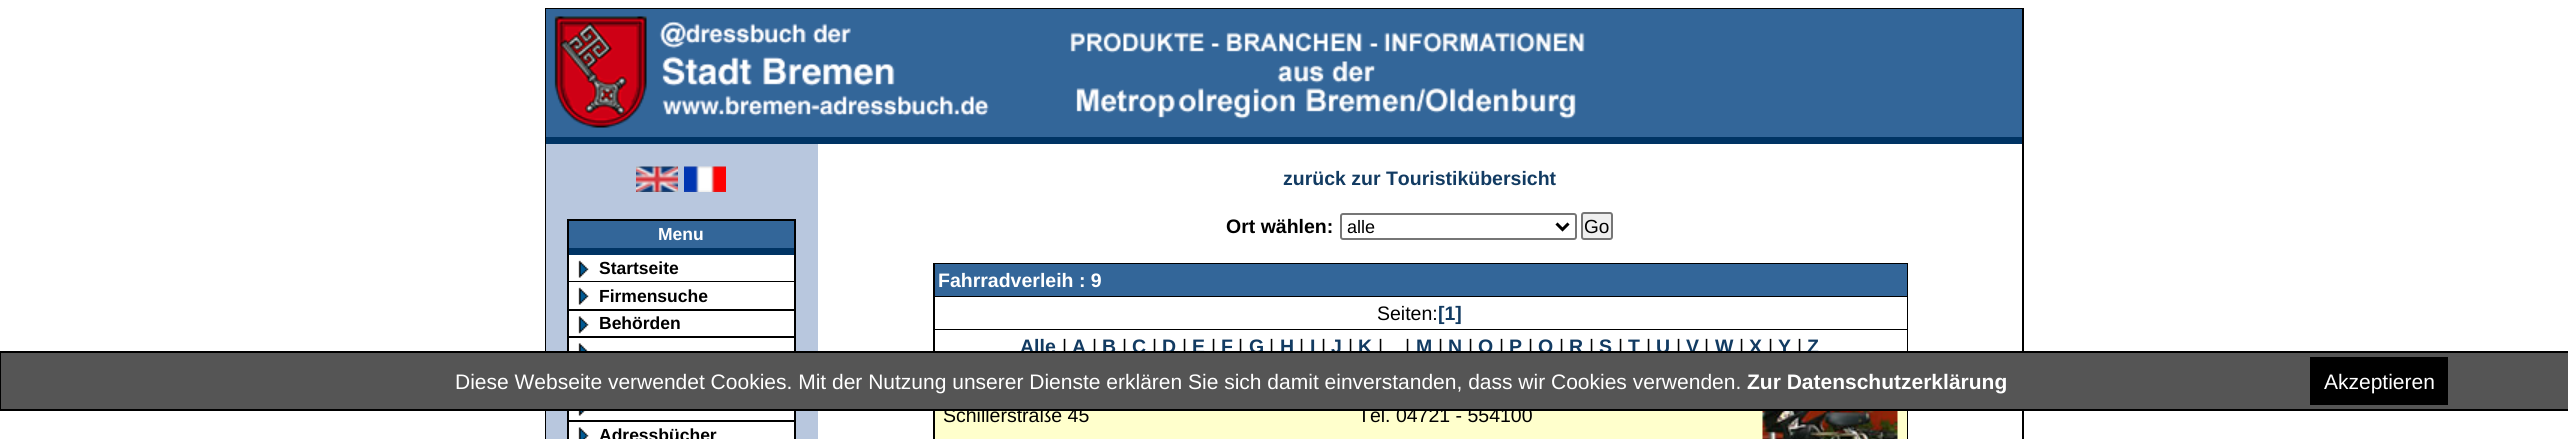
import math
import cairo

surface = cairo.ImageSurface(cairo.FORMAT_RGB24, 2568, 439)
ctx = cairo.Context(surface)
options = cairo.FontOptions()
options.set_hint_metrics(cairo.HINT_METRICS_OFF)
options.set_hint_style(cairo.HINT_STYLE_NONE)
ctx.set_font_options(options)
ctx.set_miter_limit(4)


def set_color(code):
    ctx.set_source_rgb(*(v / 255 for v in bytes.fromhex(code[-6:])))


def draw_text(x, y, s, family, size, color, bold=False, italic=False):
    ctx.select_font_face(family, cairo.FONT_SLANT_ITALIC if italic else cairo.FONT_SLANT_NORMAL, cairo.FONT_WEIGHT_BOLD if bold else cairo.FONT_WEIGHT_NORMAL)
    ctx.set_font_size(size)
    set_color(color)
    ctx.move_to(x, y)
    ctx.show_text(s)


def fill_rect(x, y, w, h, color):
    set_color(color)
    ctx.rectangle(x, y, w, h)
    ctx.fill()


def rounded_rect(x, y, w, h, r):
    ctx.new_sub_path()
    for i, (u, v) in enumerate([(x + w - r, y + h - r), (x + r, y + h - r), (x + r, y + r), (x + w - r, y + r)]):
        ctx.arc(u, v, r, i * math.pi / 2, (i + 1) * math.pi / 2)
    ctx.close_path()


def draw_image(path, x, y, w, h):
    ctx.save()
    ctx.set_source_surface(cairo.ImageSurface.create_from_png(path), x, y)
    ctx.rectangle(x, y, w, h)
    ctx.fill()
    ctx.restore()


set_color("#ffffff")
ctx.paint()
ctx.rectangle(546, 9, 1477, 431)
set_color("#000000")
ctx.stroke()
fill_rect(546, 9, 1476, 128, "#336699")
fill_rect(546, 137, 1476, 7, "#003464")
draw_image("assets/img1.png", 554, 16, 435, 112)
draw_image("assets/img2.png", 1070, 32, 515, 87)
fill_rect(546, 144, 272, 295, "#b8c7de")
draw_image("assets/img3.png", 636, 166, 42, 26)
draw_image("assets/img4.png", 684, 166, 42, 26)
fill_rect(567, 219, 228, 2, "#000000")
fill_rect(794, 219, 2, 220, "#000000")
fill_rect(567, 219, 2, 220, "#000000")
fill_rect(569, 221, 225, 27, "#336699")
fill_rect(569, 248, 225, 7, "#003464")
draw_text(658, 240, "Menu", "Liberation Sans", 17.5, "#ffffff", bold=True)
fill_rect(569, 255, 225, 26, "#ffffff")
draw_image("assets/img5.png", 578, 260, 11, 18)
fill_rect(569, 281, 225, 1, "#000000")
draw_text(599, 274, "Startseite", "Liberation Sans", 17.5, "#000000", bold=True)
fill_rect(569, 282, 225, 27, "#ffffff")
draw_image("assets/img5.png", 578, 287, 11, 18)
fill_rect(569, 309, 225, 2, "#000000")
draw_text(599, 302, "Firmensuche", "Liberation Sans", 17.5, "#000000", bold=True)
fill_rect(569, 311, 225, 25, "#ffffff")
draw_image("assets/img6.png", 578, 316, 11, 18)
fill_rect(569, 336, 225, 2, "#000000")
draw_text(599, 329, "Behörden", "Liberation Sans", 17.5, "#000000", bold=True)
fill_rect(569, 338, 225, 13, "#ffffff")
draw_image("assets/img7.png", 578, 343, 10, 8)
fill_rect(569, 411, 225, 9, "#ffffff")
draw_image("assets/img8.png", 578, 411, 8, 5)
fill_rect(569, 420, 225, 2, "#000000")
fill_rect(569, 422, 225, 17, "#ffffff")
draw_image("assets/img9.png", 578, 427, 11, 12)
draw_text(599, 441, "Adressbücher", "Liberation Sans", 17.5, "#000000", bold=True)
draw_text(1283, 185, "zurück zur Touristikübersicht", "Liberation Sans", 19.5, "#123b62", bold=True)
draw_text(1226, 233, "Ort wählen:", "Liberation Sans", 19.5, "#000000", bold=True)
rounded_rect(1341, 214, 235, 25, 2)
set_color("#767676")
ctx.stroke()
ctx.new_path()
ctx.move_to(1556.5, 223.5)
ctx.line_to(1562.5, 229.5)
ctx.line_to(1568.5, 223.5)
set_color("#000000")
ctx.set_line_width(3)
ctx.stroke()
draw_text(1347, 233, "alle", "Liberation Sans", 18, "#000000")
set_color("#efefef")
rounded_rect(1582, 213, 30, 26, 2)
ctx.fill_preserve()
set_color("#767676")
ctx.set_line_width(2)
ctx.stroke()
draw_text(1584, 233, "Go", "Liberation Sans", 19, "#000000")
fill_rect(933, 263, 975, 176, "#000000")
fill_rect(935, 264, 972, 32, "#336699")
draw_text(938, 287, "Fahrradverleih : 9", "Liberation Sans", 19.5, "#ffffff", bold=True)
fill_rect(935, 297, 972, 32, "#ffffff")
draw_text(1377, 320, "Seiten:", "Liberation Sans", 19.5, "#000000")
draw_text(1438, 320, "[1]", "Liberation Sans", 19.5, "#123b62", bold=True)
fill_rect(935, 330, 972, 21, "#ffffff")
draw_text(1020, 353, "Alle", "Liberation Sans", 19.5, "#123b62", bold=True)
draw_text(1062, 353, "|", "Liberation Sans", 19.5, "#000000")
draw_text(1072, 353, "A", "Liberation Sans", 19.5, "#123b62", bold=True)
draw_text(1092, 353, "|", "Liberation Sans", 19.5, "#000000")
draw_text(1102, 353, "B", "Liberation Sans", 19.5, "#123b62", bold=True)
draw_text(1122, 353, "|", "Liberation Sans", 19.5, "#000000")
draw_text(1132, 353, "C", "Liberation Sans", 19.5, "#123b62", bold=True)
draw_text(1152, 353, "|", "Liberation Sans", 19.5, "#000000")
draw_text(1162, 353, "D", "Liberation Sans", 19.5, "#123b62", bold=True)
draw_text(1182, 353, "|", "Liberation Sans", 19.5, "#000000")
draw_text(1192, 353, "E", "Liberation Sans", 19.5, "#123b62", bold=True)
draw_text(1211, 353, "|", "Liberation Sans", 19.5, "#000000")
draw_text(1221, 353, "F", "Liberation Sans", 19.5, "#123b62", bold=True)
draw_text(1238, 353, "|", "Liberation Sans", 19.5, "#000000")
draw_text(1249, 353, "G", "Liberation Sans", 19.5, "#123b62", bold=True)
draw_text(1269, 353, "|", "Liberation Sans", 19.5, "#000000")
draw_text(1280, 353, "H", "Liberation Sans", 19.5, "#123b62", bold=True)
draw_text(1299, 353, "|", "Liberation Sans", 19.5, "#000000")
draw_text(1310, 353, "I", "Liberation Sans", 19.5, "#123b62", bold=True)
draw_text(1321, 353, "|", "Liberation Sans", 19.5, "#000000")
draw_text(1331, 353, "J", "Liberation Sans", 19.5, "#123b62", bold=True)
draw_text(1348, 353, "|", "Liberation Sans", 19.5, "#000000")
draw_text(1358, 353, "K", "Liberation Sans", 19.5, "#123b62", bold=True)
draw_text(1378, 353, "|", "Liberation Sans", 19.5, "#000000")
draw_text(1405, 353, "|", "Liberation Sans", 19.5, "#000000")
draw_text(1416, 353, "M", "Liberation Sans", 19.5, "#123b62", bold=True)
draw_text(1438, 353, "|", "Liberation Sans", 19.5, "#000000")
draw_text(1448, 353, "N", "Liberation Sans", 19.5, "#123b62", bold=True)
draw_text(1468, 353, "|", "Liberation Sans", 19.5, "#000000")
draw_text(1478, 353, "O", "Liberation Sans", 19.5, "#123b62", bold=True)
draw_text(1499, 353, "|", "Liberation Sans", 19.5, "#000000")
draw_text(1509, 353, "P", "Liberation Sans", 19.5, "#123b62", bold=True)
draw_text(1528, 353, "|", "Liberation Sans", 19.5, "#000000")
draw_text(1538, 353, "Q", "Liberation Sans", 19.5, "#123b62", bold=True)
draw_text(1559, 353, "|", "Liberation Sans", 19.5, "#000000")
draw_text(1569, 353, "R", "Liberation Sans", 19.5, "#123b62", bold=True)
draw_text(1589, 353, "|", "Liberation Sans", 19.5, "#000000")
draw_text(1599, 353, "S", "Liberation Sans", 19.5, "#123b62", bold=True)
draw_text(1618, 353, "|", "Liberation Sans", 19.5, "#000000")
draw_text(1628, 353, "T", "Liberation Sans", 19.5, "#123b62", bold=True)
draw_text(1646, 353, "|", "Liberation Sans", 19.5, "#000000")
draw_text(1656, 353, "U", "Liberation Sans", 19.5, "#123b62", bold=True)
draw_text(1676, 353, "|", "Liberation Sans", 19.5, "#000000")
draw_text(1686, 353, "V", "Liberation Sans", 19.5, "#123b62", bold=True)
draw_text(1704, 353, "|", "Liberation Sans", 19.5, "#000000")
draw_text(1715, 353, "W", "Liberation Sans", 19.5, "#123b62", bold=True)
draw_text(1739, 353, "|", "Liberation Sans", 19.5, "#000000")
draw_text(1749, 353, "X", "Liberation Sans", 19.5, "#123b62", bold=True)
draw_text(1768, 353, "|", "Liberation Sans", 19.5, "#000000")
draw_text(1778, 353, "Y", "Liberation Sans", 19.5, "#123b62", bold=True)
draw_text(1797, 353, "|", "Liberation Sans", 19.5, "#000000")
draw_text(1807, 353, "Z", "Liberation Sans", 19.5, "#123b62", bold=True)
fill_rect(935, 411, 972, 28, "#ffffcc")
draw_text(943, 422, "Schillerstraße 45", "Liberation Sans", 19.5, "#000000")
draw_text(1358, 422, "Tel. 04721 - 554100", "Liberation Sans", 19.5, "#000000")
draw_image("assets/img10.png", 1762, 411, 136, 28)
fill_rect(1, 353, 2567, 56, "#555555")
ctx.rectangle(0, 352, 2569, 58)
set_color("#000000")
ctx.stroke()
draw_text(455, 389, "Diese Webseite verwendet Cookies. Mit der Nutzung unserer Dienste erklären Sie sich damit einverstanden, dass wir Cookies verwenden.", "Liberation Sans", 21, "#ffffff")
draw_text(1747, 389, "Zur Datenschutzerklärung", "Liberation Sans", 21, "#ffffff", bold=True)
fill_rect(2310, 357, 138, 48, "#000000")
draw_text(2324, 389, "Akzeptieren", "Liberation Sans", 21, "#ffffff")
surface.write_to_png("output.png")
